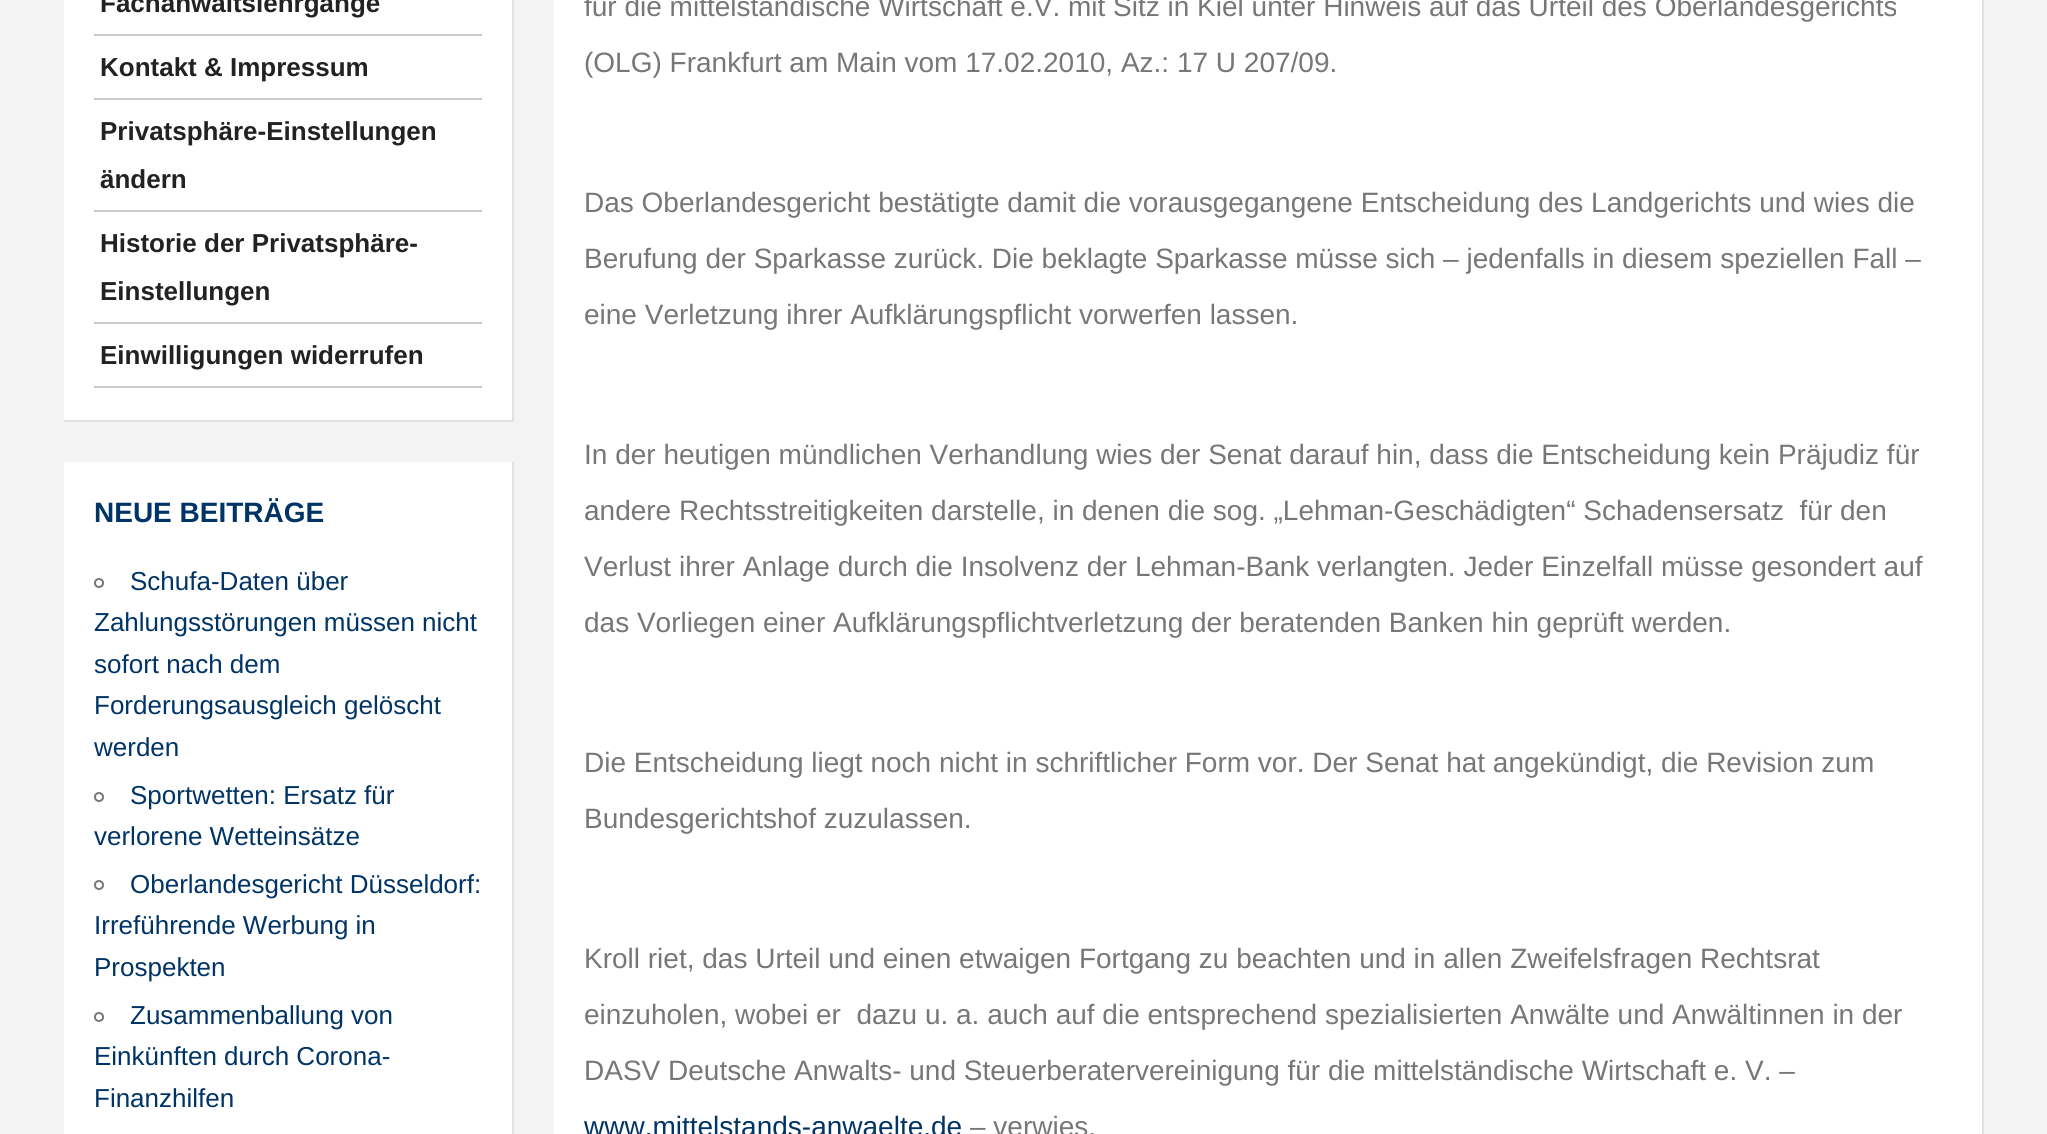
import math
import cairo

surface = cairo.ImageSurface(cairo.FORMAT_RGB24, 2047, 1134)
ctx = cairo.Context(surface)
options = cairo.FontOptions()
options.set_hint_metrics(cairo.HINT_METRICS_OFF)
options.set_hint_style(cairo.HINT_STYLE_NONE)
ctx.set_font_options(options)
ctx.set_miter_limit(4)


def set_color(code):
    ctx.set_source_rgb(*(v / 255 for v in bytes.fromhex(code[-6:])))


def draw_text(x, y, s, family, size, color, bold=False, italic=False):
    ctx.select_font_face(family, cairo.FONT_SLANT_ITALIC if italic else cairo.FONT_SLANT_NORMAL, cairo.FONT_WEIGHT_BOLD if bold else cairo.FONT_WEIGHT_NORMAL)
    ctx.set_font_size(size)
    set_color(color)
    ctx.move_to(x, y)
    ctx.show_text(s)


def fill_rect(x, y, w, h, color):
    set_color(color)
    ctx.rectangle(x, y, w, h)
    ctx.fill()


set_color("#f3f3f3")
ctx.paint()
fill_rect(64, 0, 448, 420, "#ffffff")
set_color("#e1e1e1")
ctx.new_path()
ctx.move_to(514, -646)
ctx.line_to(514, 422)
ctx.line_to(512, 420)
ctx.line_to(512, -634)
ctx.close_path()
ctx.fill()
fill_rect(64, 420, 450, 2, "#e1e1e1")
fill_rect(94, 34, 388, 2, "#cccccc")
draw_text(100, 12, "Fachanwaltslehrgänge", "Liberation Sans", 26, "#222222", bold=True)
fill_rect(94, 98, 388, 2, "#cccccc")
draw_text(100, 76, "Kontakt & Impressum", "Liberation Sans", 26, "#222222", bold=True)
fill_rect(94, 210, 388, 2, "#cccccc")
draw_text(100, 140, "Privatsphäre-Einstellungen", "Liberation Sans", 26, "#222222", bold=True)
draw_text(100, 188, "ändern", "Liberation Sans", 26, "#222222", bold=True)
fill_rect(94, 322, 388, 2, "#cccccc")
draw_text(100, 252, "Historie der Privatsphäre-", "Liberation Sans", 26, "#222222", bold=True)
draw_text(100, 300, "Einstellungen", "Liberation Sans", 26, "#222222", bold=True)
fill_rect(94, 386, 388, 2, "#cccccc")
draw_text(100, 364, "Einwilligungen widerrufen", "Liberation Sans", 26, "#222222", bold=True)
fill_rect(64, 462, 448, 672, "#ffffff")
fill_rect(512, 462, 2, 672, "#e1e1e1")
draw_text(94, 522, "NEUE BEITRÄGE", "Liberation Sans", 28, "#003366", bold=True)
ctx.new_path()
ctx.arc(99, 583, 4, 0, 2 * math.pi)
set_color("#777777")
ctx.stroke()
draw_text(130, 590, "Schufa-Daten über", "Liberation Sans", 26, "#003366")
draw_text(94, 631, "Zahlungsstörungen müssen nicht", "Liberation Sans", 26, "#003366")
draw_text(94, 673, "sofort nach dem", "Liberation Sans", 26, "#003366")
draw_text(94, 714, "Forderungsausgleich gelöscht", "Liberation Sans", 26, "#003366")
draw_text(94, 756, "werden", "Liberation Sans", 26, "#003366")
ctx.new_path()
ctx.arc(99, 797, 4, 0, 2 * math.pi)
set_color("#777777")
ctx.stroke()
draw_text(130, 804, "Sportwetten: Ersatz für", "Liberation Sans", 26, "#003366")
draw_text(94, 845, "verlorene Wetteinsätze", "Liberation Sans", 26, "#003366")
ctx.new_path()
ctx.arc(99, 885, 4, 0, 2 * math.pi)
set_color("#777777")
ctx.stroke()
draw_text(130, 893, "Oberlandesgericht Düsseldorf:", "Liberation Sans", 26, "#003366")
draw_text(94, 934, "Irreführende Werbung in", "Liberation Sans", 26, "#003366")
draw_text(94, 976, "Prospekten", "Liberation Sans", 26, "#003366")
ctx.new_path()
ctx.arc(99, 1017, 4, 0, 2 * math.pi)
set_color("#777777")
ctx.stroke()
draw_text(130, 1024, "Zusammenballung von", "Liberation Sans", 26, "#003366")
draw_text(94, 1065, "Einkünften durch Corona-", "Liberation Sans", 26, "#003366")
draw_text(94, 1107, "Finanzhilfen", "Liberation Sans", 26, "#003366")
fill_rect(554, 0, 1428, 1134, "#ffffff")
fill_rect(1982, 0, 2, 1134, "#e1e1e1")
draw_text(584, 16, "für die mittelständische Wirtschaft e.V. mit Sitz in Kiel unter Hinweis auf das Urteil des Oberlandesgerichts", "Liberation Sans", 28, "#777777")
draw_text(584, 72, "(OLG) Frankfurt am Main vom 17.02.2010, Az.: 17 U 207/09.", "Liberation Sans", 28, "#777777")
draw_text(584, 212, "Das Oberlandesgericht bestätigte damit die vorausgegangene Entscheidung des Landgerichts und wies die", "Liberation Sans", 28, "#777777")
draw_text(584, 268, "Berufung der Sparkasse zurück. Die beklagte Sparkasse müsse sich – jedenfalls in diesem speziellen Fall –", "Liberation Sans", 28, "#777777")
draw_text(584, 324, "eine Verletzung ihrer Aufklärungspflicht vorwerfen lassen.", "Liberation Sans", 28, "#777777")
draw_text(584, 464, "In der heutigen mündlichen Verhandlung wies der Senat darauf hin, dass die Entscheidung kein Präjudiz für", "Liberation Sans", 28, "#777777")
draw_text(584, 520, "andere Rechtsstreitigkeiten darstelle, in denen die sog. „Lehman-Geschädigten“ Schadensersatz  für den", "Liberation Sans", 28, "#777777")
draw_text(584, 576, "Verlust ihrer Anlage durch die Insolvenz der Lehman-Bank verlangten. Jeder Einzelfall müsse gesondert auf", "Liberation Sans", 28, "#777777")
draw_text(584, 632, "das Vorliegen einer Aufklärungspflichtverletzung der beratenden Banken hin geprüft werden.", "Liberation Sans", 28, "#777777")
draw_text(584, 772, "Die Entscheidung liegt noch nicht in schriftlicher Form vor. Der Senat hat angekündigt, die Revision zum", "Liberation Sans", 28, "#777777")
draw_text(584, 828, "Bundesgerichtshof zuzulassen.", "Liberation Sans", 28, "#777777")
draw_text(584, 968, "Kroll riet, das Urteil und einen etwaigen Fortgang zu beachten und in allen Zweifelsfragen Rechtsrat", "Liberation Sans", 28, "#777777")
draw_text(584, 1024, "einzuholen, wobei er  dazu u. a. auch auf die entsprechend spezialisierten Anwälte und Anwältinnen in der", "Liberation Sans", 28, "#777777")
draw_text(584, 1080, "DASV Deutsche Anwalts- und Steuerberatervereinigung für die mittelständische Wirtschaft e. V. –", "Liberation Sans", 28, "#777777")
draw_text(584, 1136, "www.mittelstands-anwaelte.de", "Liberation Sans", 28, "#003366")
draw_text(970, 1136, "– verwies.", "Liberation Sans", 28, "#777777")
surface.write_to_png("output.png")
